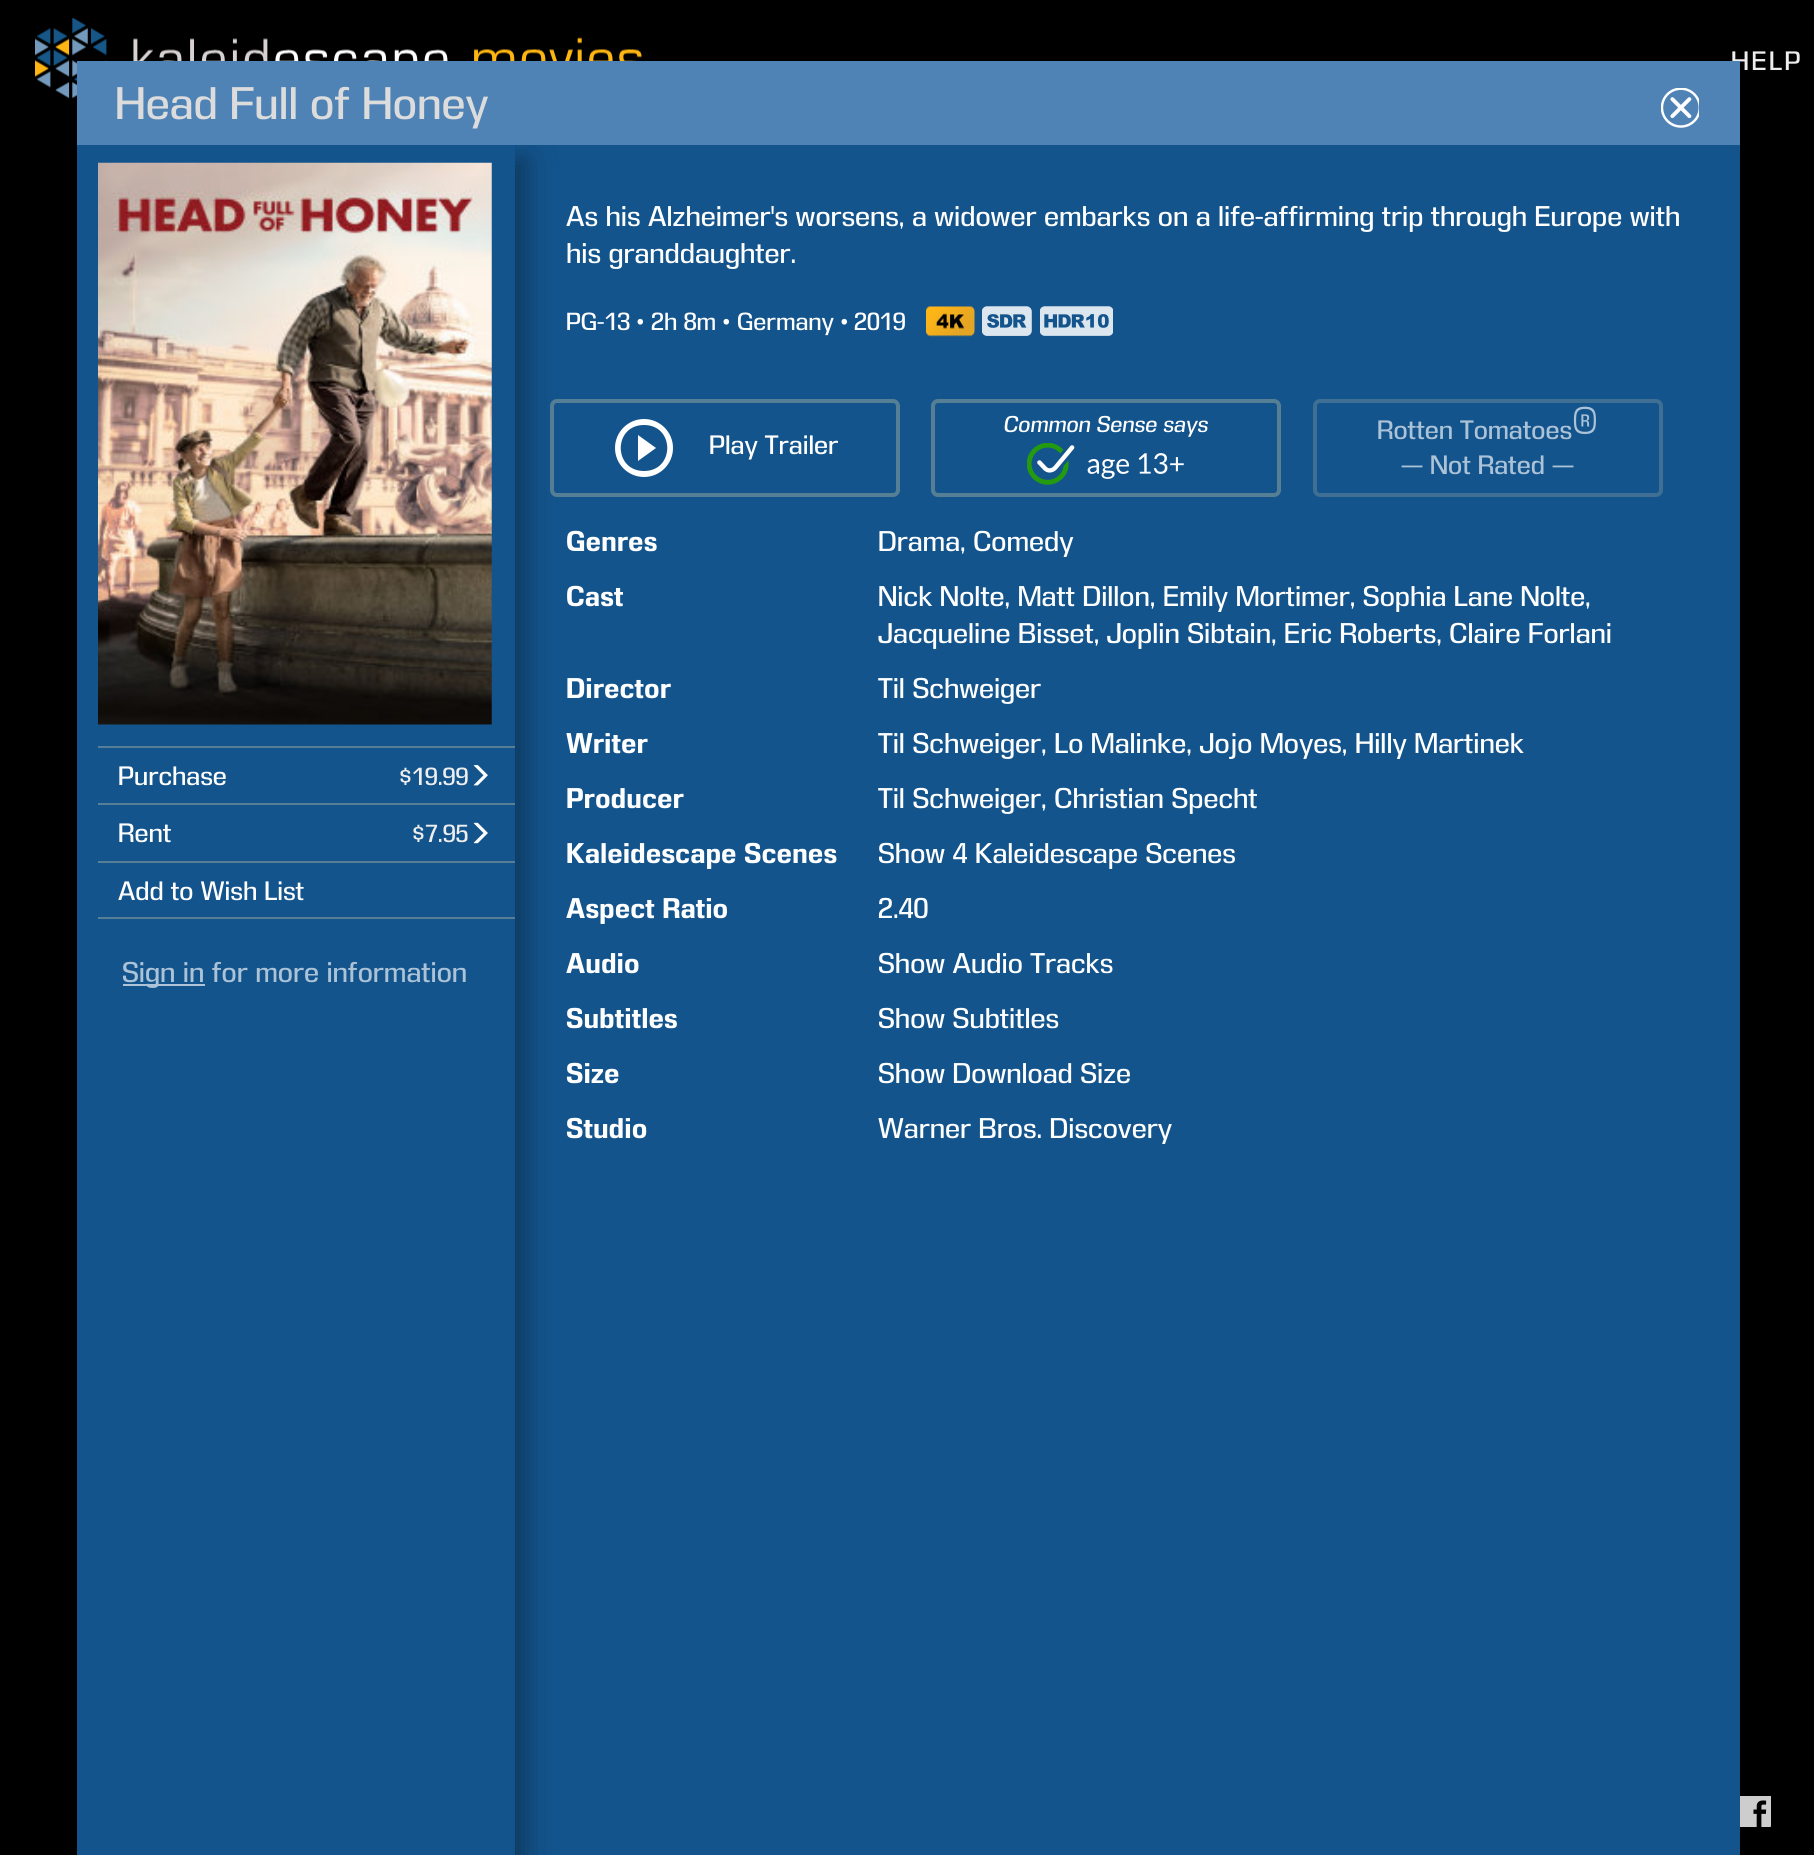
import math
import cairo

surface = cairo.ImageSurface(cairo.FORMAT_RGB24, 1814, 1855)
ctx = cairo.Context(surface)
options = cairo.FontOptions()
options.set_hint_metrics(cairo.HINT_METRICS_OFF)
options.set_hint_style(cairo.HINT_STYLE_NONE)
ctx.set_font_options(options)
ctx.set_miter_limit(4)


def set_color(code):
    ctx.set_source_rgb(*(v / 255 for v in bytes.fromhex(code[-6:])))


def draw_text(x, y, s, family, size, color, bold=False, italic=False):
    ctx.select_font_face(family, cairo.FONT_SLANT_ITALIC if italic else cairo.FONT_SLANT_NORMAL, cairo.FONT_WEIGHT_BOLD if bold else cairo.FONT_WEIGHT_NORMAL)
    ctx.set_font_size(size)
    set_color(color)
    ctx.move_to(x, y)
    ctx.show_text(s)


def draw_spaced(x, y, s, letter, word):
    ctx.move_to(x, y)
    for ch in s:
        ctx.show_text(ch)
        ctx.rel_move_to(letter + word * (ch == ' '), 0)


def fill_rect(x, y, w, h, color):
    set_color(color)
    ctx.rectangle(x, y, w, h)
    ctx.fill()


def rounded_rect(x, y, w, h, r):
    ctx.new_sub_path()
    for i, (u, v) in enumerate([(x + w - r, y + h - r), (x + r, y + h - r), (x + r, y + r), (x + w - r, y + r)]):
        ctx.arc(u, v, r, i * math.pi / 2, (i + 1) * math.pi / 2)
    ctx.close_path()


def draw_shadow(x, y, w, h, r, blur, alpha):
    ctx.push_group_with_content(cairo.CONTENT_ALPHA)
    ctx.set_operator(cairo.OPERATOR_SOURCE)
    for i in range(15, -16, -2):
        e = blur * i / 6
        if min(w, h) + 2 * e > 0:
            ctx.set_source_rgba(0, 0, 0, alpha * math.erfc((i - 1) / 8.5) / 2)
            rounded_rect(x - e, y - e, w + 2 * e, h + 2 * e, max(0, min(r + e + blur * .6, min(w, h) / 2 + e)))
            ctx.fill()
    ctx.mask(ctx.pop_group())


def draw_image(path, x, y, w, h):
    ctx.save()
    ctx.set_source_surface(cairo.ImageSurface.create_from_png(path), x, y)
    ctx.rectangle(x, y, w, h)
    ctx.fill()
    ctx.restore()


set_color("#000000")
ctx.paint()
draw_image("assets/img1.png", 35, 18, 607, 81)
ctx.select_font_face("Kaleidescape")
ctx.set_font_size(24.5)
set_color("#eeeeee")
draw_spaced(1731, 70, "HELP", 2.5, 0)
draw_image("assets/img2.png", 1740, 1796, 31, 31)
fill_rect(515, 145, 1225, 1710, "#13548c")
rounded_rect(552, 401, 346, 94, 5)
set_color("#567e95")
ctx.set_line_width(4)
ctx.stroke()
set_color("#0d395f")
draw_shadow(117, 159, 410, 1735, 0, 13, 1)
fill_rect(77, 61, 1663, 84, "#4f83b6")
draw_text(115, 119, "Head Full of Honey", "Kaleidescape", 42, "#dcdcdc")
draw_image("assets/img3.png", 1661, 88, 38, 40)
fill_rect(77, 145, 438, 1710, "#13548c")
draw_image("assets/img4.png", 98, 162, 394, 563)
fill_rect(98, 746, 417, 2, "#567e95")
draw_text(118, 785, "Purchase", "Kaleidescape", 24.5, "#ffffff")
draw_text(399, 785, "$19.99", "Kaleidescape", 22.75, "#eeeeee")
draw_image("assets/img5.png", 473, 765, 15, 21)
fill_rect(98, 803, 417, 2, "#567e95")
draw_text(118, 842, "Rent", "Kaleidescape", 24.5, "#ffffff")
draw_text(412, 842, "$7.95", "Kaleidescape", 22.75, "#eeeeee")
draw_image("assets/img6.png", 473, 822, 15, 22)
fill_rect(98, 861, 417, 2, "#567e95")
fill_rect(98, 917, 417, 2, "#567e95")
draw_text(118, 900, "Add to Wish List", "Kaleidescape", 24.5, "#ffffff")
fill_rect(123, 984, 82, 2, "#b0c3d7")
draw_text(122, 982, "Sign in for more information", "Kaleidescape", 26.25, "#acc3d7")
draw_text(566, 226, "As his Alzheimer's worsens, a widower embarks on a life-affirming trip through Europe with", "Kaleidescape", 26.25, "#ffffff")
draw_text(566, 263, "his granddaughter.", "Kaleidescape", 26.25, "#ffffff")
draw_text(566, 330, "PG-13", "Kaleidescape", 22.75, "#ffffff")
draw_text(637, 330, "•", "Kaleidescape", 22.75, "#ffffff")
draw_text(651, 330, "2h 8m", "Kaleidescape", 22.75, "#ffffff")
draw_text(723, 330, "•", "Kaleidescape", 22.75, "#ffffff")
draw_text(737, 330, "Germany", "Kaleidescape", 22.75, "#ffffff")
draw_text(841, 330, "•", "Kaleidescape", 22.75, "#ffffff")
draw_text(854, 330, "2019", "Kaleidescape", 22.75, "#ffffff")
draw_image("assets/img7.png", 926, 306, 49, 31)
draw_image("assets/img8.png", 982, 306, 50, 30)
draw_image("assets/img9.png", 1040, 306, 73, 30)
rounded_rect(933, 401, 346, 94, 5)
set_color("#567e95")
ctx.stroke()
draw_text(1003, 432, "Common Sense says", "Kaleidescape", 21, "#ffffff", italic=True)
draw_image("assets/img10.png", 1027, 443, 157, 42)
rounded_rect(1315, 401, 346, 94, 5)
set_color("#3f6f92")
ctx.stroke()
draw_text(1377, 439, "Rotten Tomatoes", "Kaleidescape", 24.5, "#acc3d7")
draw_text(1572, 439, "®", "Kaleidescape", 42, "#acc3d7")
draw_text(1401, 474, "— Not Rated —", "Kaleidescape", 24.5, "#acc3d7")
set_color("#ffffff")
ctx.new_path()
ctx.move_to(638, 461)
ctx.line_to(656, 448)
ctx.line_to(638, 435)
ctx.close_path()
ctx.move_to(644, 419)
ctx.curve_to(628, 419, 615, 432, 615, 448)
ctx.curve_to(615, 464, 628, 477, 644, 477)
ctx.curve_to(660, 477, 673, 464, 673, 448)
ctx.curve_to(673, 432, 660, 419, 644, 419)
ctx.close_path()
ctx.move_to(644, 471)
ctx.curve_to(613, 471, 613, 425, 644, 425)
ctx.curve_to(675, 425, 675, 471, 644, 471)
ctx.close_path()
ctx.fill()
draw_text(709, 454, "Play Trailer", "Kaleidescape", 24.5, "#ffffff")
draw_text(566, 551, "Genres", "Kaleidescape", 26.25, "#ffffff", bold=True)
draw_text(878, 551, "Drama, Comedy", "Kaleidescape", 26.25, "#ffffff")
draw_text(566, 606, "Cast", "Kaleidescape", 26.25, "#ffffff", bold=True)
draw_text(878, 606, "Nick Nolte, Matt Dillon, Emily Mortimer, Sophia Lane Nolte,", "Kaleidescape", 26.25, "#ffffff")
draw_text(878, 643, "Jacqueline Bisset, Joplin Sibtain, Eric Roberts, Claire Forlani", "Kaleidescape", 26.25, "#ffffff")
draw_text(566, 698, "Director", "Kaleidescape", 26.25, "#ffffff", bold=True)
draw_text(878, 698, "Til Schweiger", "Kaleidescape", 26.25, "#ffffff")
draw_text(566, 753, "Writer", "Kaleidescape", 26.25, "#ffffff", bold=True)
draw_text(878, 753, "Til Schweiger, Lo Malinke, Jojo Moyes, Hilly Martinek", "Kaleidescape", 26.25, "#ffffff")
draw_text(566, 808, "Producer", "Kaleidescape", 26.25, "#ffffff", bold=True)
draw_text(878, 808, "Til Schweiger, Christian Specht", "Kaleidescape", 26.25, "#ffffff")
draw_text(566, 863, "Kaleidescape Scenes", "Kaleidescape", 26.25, "#ffffff", bold=True)
draw_text(878, 863, "Show 4 Kaleidescape Scenes", "Kaleidescape", 26.25, "#ffffff")
draw_text(566, 918, "Aspect Ratio", "Kaleidescape", 26.25, "#ffffff", bold=True)
draw_text(878, 918, "2.40", "Kaleidescape", 26.25, "#ffffff")
draw_text(566, 973, "Audio", "Kaleidescape", 26.25, "#ffffff", bold=True)
draw_text(878, 973, "Show Audio Tracks", "Kaleidescape", 26.25, "#ffffff")
draw_text(566, 1028, "Subtitles", "Kaleidescape", 26.25, "#ffffff", bold=True)
draw_text(878, 1028, "Show Subtitles", "Kaleidescape", 26.25, "#ffffff")
draw_text(566, 1083, "Size", "Kaleidescape", 26.25, "#ffffff", bold=True)
draw_text(878, 1083, "Show Download Size", "Kaleidescape", 26.25, "#ffffff")
draw_text(566, 1138, "Studio", "Kaleidescape", 26.25, "#ffffff", bold=True)
draw_text(878, 1138, "Warner Bros. Discovery", "Kaleidescape", 26.25, "#ffffff")
surface.write_to_png("output.png")
